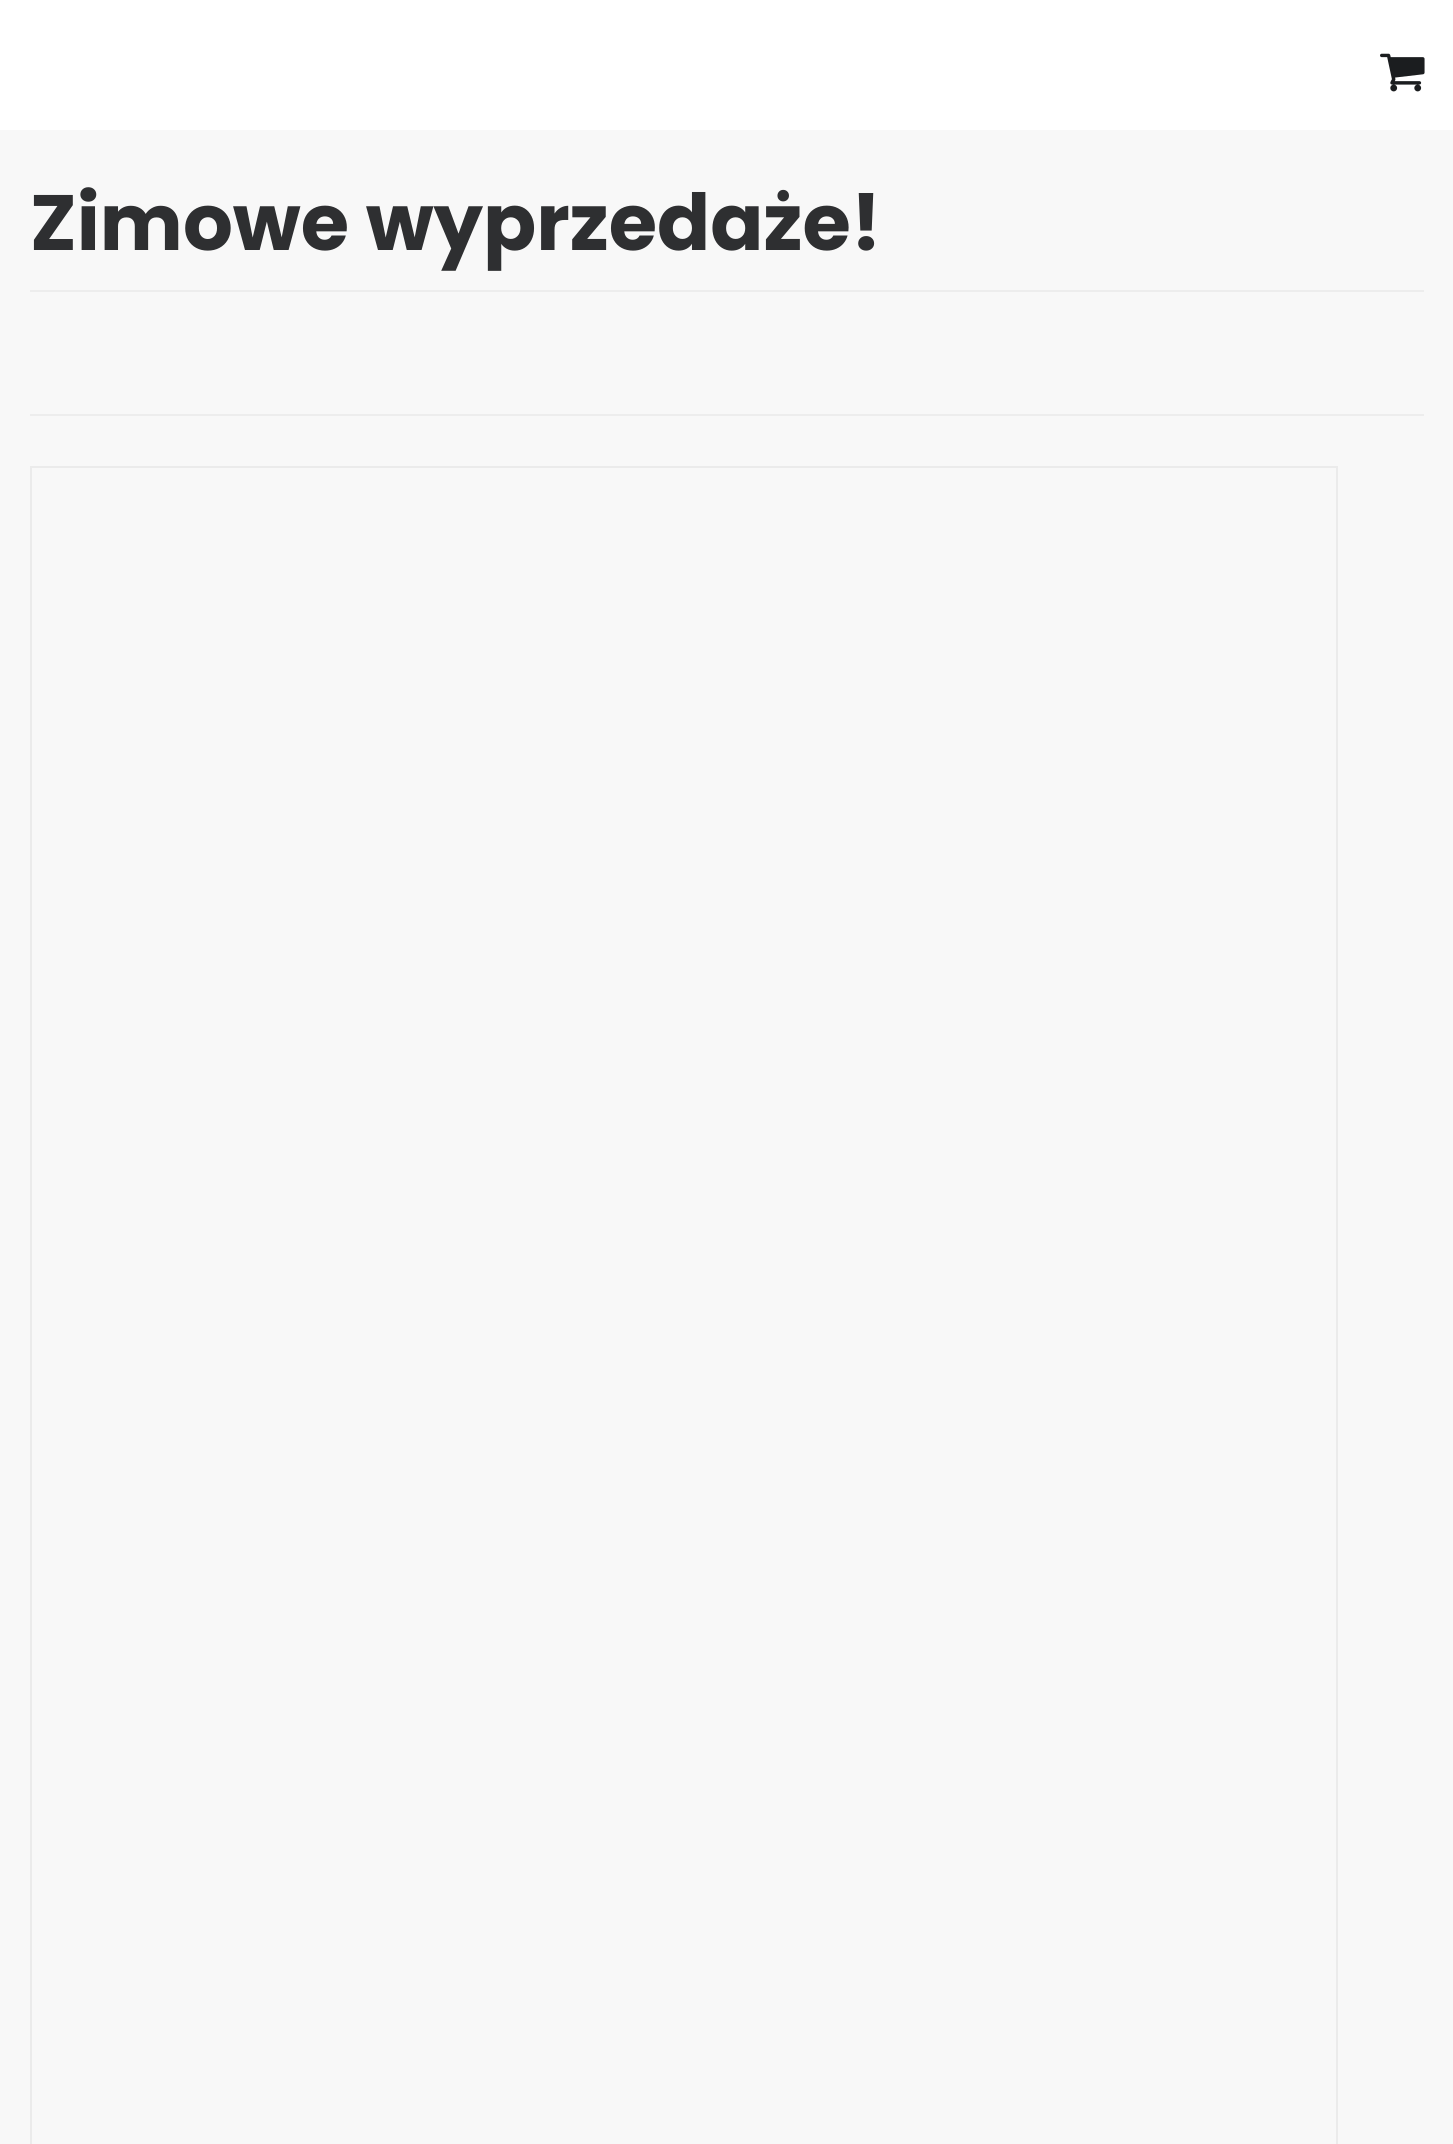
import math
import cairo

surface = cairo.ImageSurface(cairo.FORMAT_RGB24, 1453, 2144)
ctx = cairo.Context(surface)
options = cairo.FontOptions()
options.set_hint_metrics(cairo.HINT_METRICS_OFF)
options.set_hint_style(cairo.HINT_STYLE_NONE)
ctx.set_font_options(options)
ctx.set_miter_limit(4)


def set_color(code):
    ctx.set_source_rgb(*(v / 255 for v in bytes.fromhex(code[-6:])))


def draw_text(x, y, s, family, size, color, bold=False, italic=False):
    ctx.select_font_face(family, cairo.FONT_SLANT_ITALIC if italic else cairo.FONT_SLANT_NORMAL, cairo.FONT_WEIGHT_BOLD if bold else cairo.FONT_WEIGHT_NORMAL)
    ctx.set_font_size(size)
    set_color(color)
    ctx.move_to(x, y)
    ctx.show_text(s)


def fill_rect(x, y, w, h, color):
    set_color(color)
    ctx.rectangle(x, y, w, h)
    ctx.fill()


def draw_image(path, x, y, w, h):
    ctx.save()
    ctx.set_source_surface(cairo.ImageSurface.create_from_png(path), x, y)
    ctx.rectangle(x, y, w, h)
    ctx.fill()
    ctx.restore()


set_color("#f8f8f8")
ctx.paint()
fill_rect(0, 0, 1453, 130, "#ffffff")
draw_image("assets/img1.png", 1380, 53, 45, 39)
fill_rect(30, 414, 1394, 2, "#ededed")
draw_text(30, 250, "Zimowe wyprzedaże!", "Poppins", 78.4, "#2e2f31", bold=True)
fill_rect(30, 290, 1394, 2, "#ededed")
ctx.rectangle(31, 467, 1306, 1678)
set_color("#ebebeb")
ctx.stroke()
surface.write_to_png("output.png")
